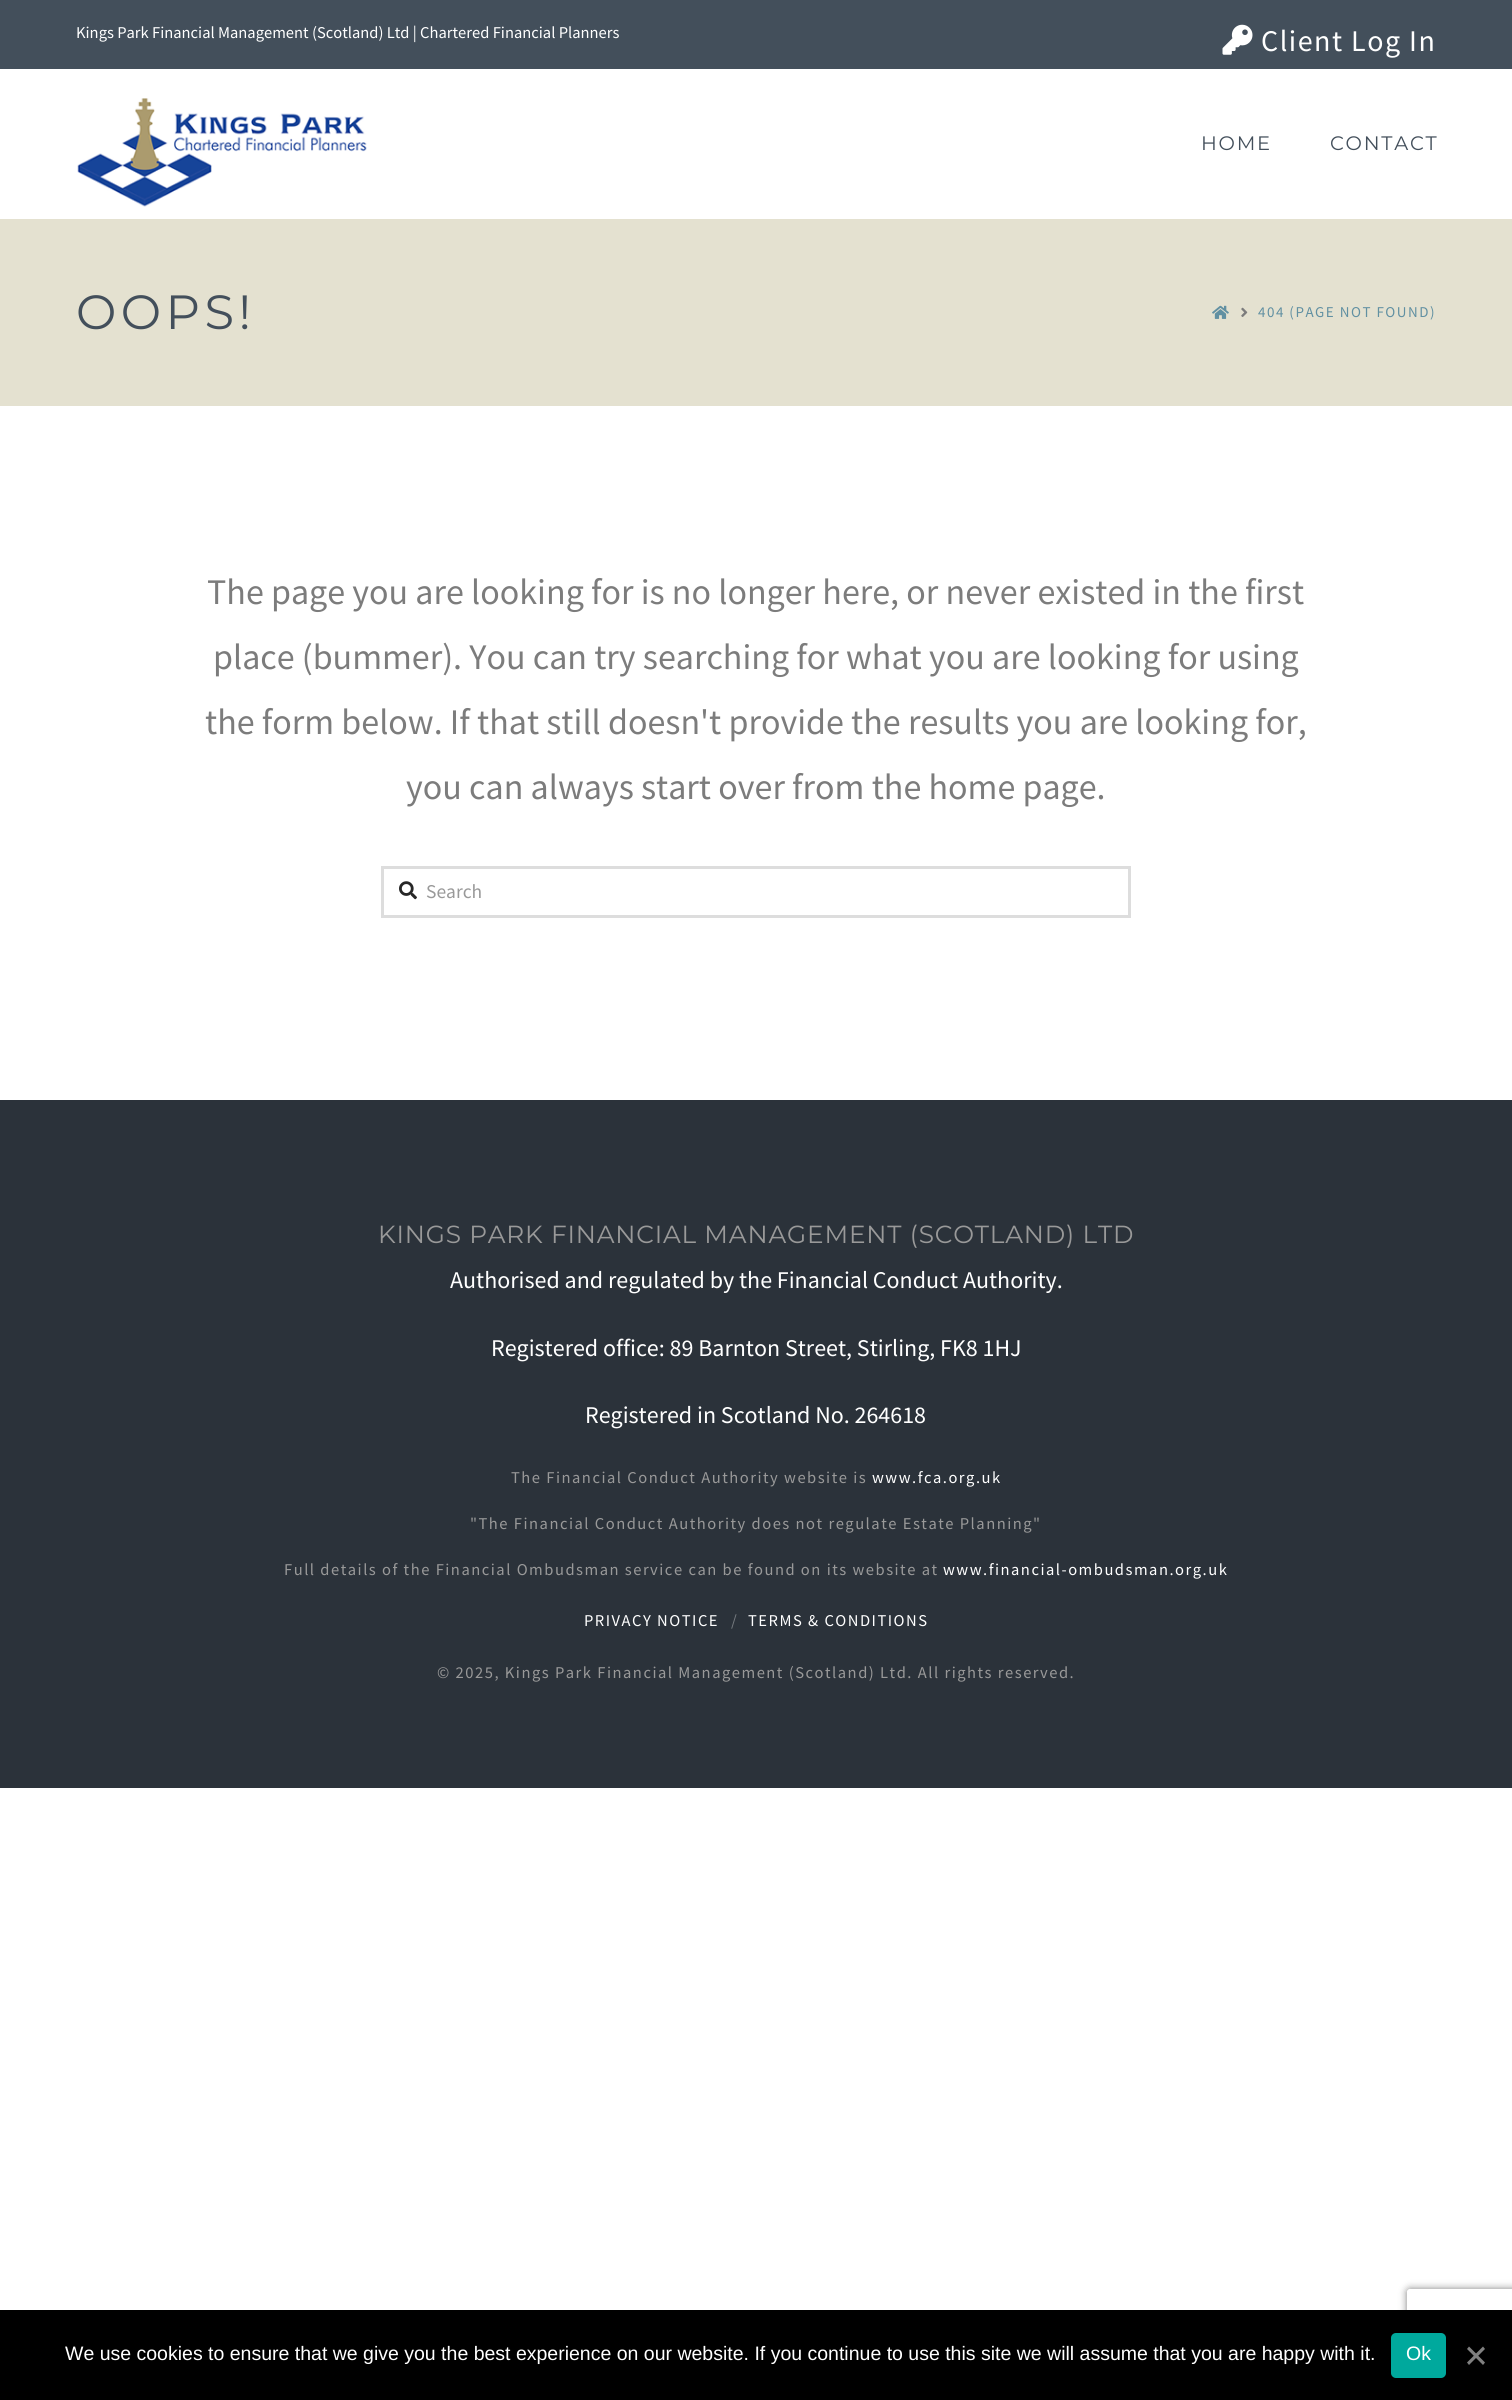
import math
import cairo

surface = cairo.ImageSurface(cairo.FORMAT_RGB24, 1512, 2400)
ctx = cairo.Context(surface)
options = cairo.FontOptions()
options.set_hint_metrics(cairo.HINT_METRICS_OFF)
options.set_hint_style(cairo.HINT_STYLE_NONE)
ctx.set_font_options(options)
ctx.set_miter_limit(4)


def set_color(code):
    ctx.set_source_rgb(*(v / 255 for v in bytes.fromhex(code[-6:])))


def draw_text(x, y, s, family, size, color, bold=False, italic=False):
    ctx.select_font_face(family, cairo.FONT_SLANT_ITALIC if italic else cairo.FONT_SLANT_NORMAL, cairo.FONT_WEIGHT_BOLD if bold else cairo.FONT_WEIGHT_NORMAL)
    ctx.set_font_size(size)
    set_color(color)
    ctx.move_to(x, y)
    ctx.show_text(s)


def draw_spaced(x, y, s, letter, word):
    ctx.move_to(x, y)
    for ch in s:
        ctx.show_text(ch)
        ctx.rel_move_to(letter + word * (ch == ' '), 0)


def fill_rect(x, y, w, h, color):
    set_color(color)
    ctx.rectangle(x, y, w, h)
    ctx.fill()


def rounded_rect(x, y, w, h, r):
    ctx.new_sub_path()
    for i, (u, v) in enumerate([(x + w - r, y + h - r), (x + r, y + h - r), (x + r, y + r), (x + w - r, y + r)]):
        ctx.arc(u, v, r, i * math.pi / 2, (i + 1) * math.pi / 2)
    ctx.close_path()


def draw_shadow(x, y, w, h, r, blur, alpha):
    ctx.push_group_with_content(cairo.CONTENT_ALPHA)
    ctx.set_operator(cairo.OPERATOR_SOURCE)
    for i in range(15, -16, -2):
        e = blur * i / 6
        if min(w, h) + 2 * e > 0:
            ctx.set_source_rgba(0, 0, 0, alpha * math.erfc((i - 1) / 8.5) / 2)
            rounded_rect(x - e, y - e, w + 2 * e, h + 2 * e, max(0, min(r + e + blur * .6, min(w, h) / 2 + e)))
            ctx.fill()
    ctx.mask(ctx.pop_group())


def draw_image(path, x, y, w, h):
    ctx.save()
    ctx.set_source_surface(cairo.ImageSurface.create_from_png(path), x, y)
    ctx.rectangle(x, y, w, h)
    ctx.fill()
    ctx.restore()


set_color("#ffffff")
ctx.paint()
fill_rect(0, 0, 1512, 69, "#434f5b")
draw_text(76, 38, "Kings Park Financial Management (Scotland) Ltd | Chartered Financial Planners", "Source Sans Pro", 16.5, "#ffffff")
draw_image("assets/img1.png", 1222, 24, 31, 31)
ctx.set_font_size(30)
draw_spaced(1261, 51, "Client Log In", 1.5, 0)
draw_image("assets/img2.png", 77, 98, 290, 109)
ctx.select_font_face("Montserrat")
ctx.set_font_size(19.5)
set_color("#434f5b")
draw_spaced(1201, 150, "HOME", 1.75, 0)
draw_spaced(1330, 150, "CONTACT", 1.75, 0)
fill_rect(0, 219, 1512, 187, "#e4e1d0")
ctx.set_font_size(48)
set_color("#434f5b")
draw_spaced(76, 329, "OOPS!", 4.5, 0)
draw_image("assets/img3.png", 1212, 305, 17, 14)
draw_image("assets/img4.png", 1241, 307, 7, 10)
ctx.select_font_face("Source Sans Pro")
ctx.set_font_size(15)
set_color("#6190a2")
draw_spaced(1258, 317, "404 (PAGE NOT FOUND)", 1.5, 0)
draw_text(207, 604, "The page you are looking for is no longer here, or never existed in the first", "Source Sans Pro", 36, "#7c7c7c")
draw_text(213, 669, "place (bummer). You can try searching for what you are looking for using", "Source Sans Pro", 36, "#7c7c7c")
draw_text(205, 734, "the form below. If that still doesn't provide the results you are looking for,", "Source Sans Pro", 36, "#7c7c7c")
draw_text(406, 799, "you can always start over from the home page.", "Source Sans Pro", 36, "#7c7c7c")
ctx.rectangle(382.5, 867.5, 747, 49)
set_color("#dddddd")
ctx.set_line_width(3)
ctx.stroke()
draw_image("assets/img5.png", 399, 881, 18, 19)
draw_text(426, 898, "Search", "Source Sans Pro", 19.5, "#999999")
fill_rect(0, 1100, 1512, 688, "#2b323a")
ctx.select_font_face("Montserrat")
ctx.set_font_size(24.75)
set_color("#999999")
draw_spaced(378, 1243, "KINGS PARK FINANCIAL MANAGEMENT (SCOTLAND) LTD", 0.85, 0)
draw_text(450, 1288, "Authorised and regulated by the Financial Conduct Authority.", "Source Sans Pro", 24, "#ffffff")
draw_text(491, 1356, "Registered office: 89 Barnton Street, Stirling, FK8 1HJ", "Source Sans Pro", 24, "#ffffff")
draw_text(585, 1423, "Registered in Scotland No. 264618", "Source Sans Pro", 24, "#ffffff")
ctx.set_font_size(16.5)
set_color("#999999")
draw_spaced(511, 1483, "The Financial Conduct Authority website is", 1.5, 0)
set_color("#ffffff")
draw_spaced(872, 1483, "www.fca.org.uk", 1.5, 0)
set_color("#999999")
draw_spaced(470, 1529, "\"The Financial Conduct Authority does not regulate Estate Planning\"", 1.5, 0)
draw_spaced(284, 1575, "Full details of the Financial Ombudsman service can be found on its website at", 1.5, 0)
set_color("#ffffff")
draw_spaced(943, 1575, "www.financial-ombudsman.org.uk", 1.5, 0)
draw_spaced(584, 1626, "PRIVACY NOTICE", 1.5, 0)
set_color("#757a7f")
draw_spaced(731, 1626, "/", 1.5, 0)
set_color("#ffffff")
draw_spaced(748, 1626, "TERMS & CONDITIONS", 1.5, 0)
set_color("#999999")
draw_spaced(437, 1678, "© 2025, Kings Park Financial Management (Scotland) Ltd. All rights reserved.", 1.5, 0)
ctx.save()
ctx.set_fill_rule(cairo.FILL_RULE_EVEN_ODD)
ctx.new_path()
ctx.move_to(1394, 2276)
ctx.line_to(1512, 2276)
ctx.line_to(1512, 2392)
ctx.line_to(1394, 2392)
ctx.close_path()
ctx.move_to(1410, 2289)
ctx.line_to(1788, 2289)
ctx.curve_to(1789.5, 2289, 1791, 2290.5, 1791, 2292)
ctx.line_to(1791, 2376)
ctx.curve_to(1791, 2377.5, 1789.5, 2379, 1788, 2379)
ctx.line_to(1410, 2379)
ctx.curve_to(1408.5, 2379, 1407, 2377.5, 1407, 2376)
ctx.line_to(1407, 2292)
ctx.curve_to(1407, 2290.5, 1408.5, 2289, 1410, 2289)
ctx.close_path()
ctx.clip()
set_color("#808080")
draw_shadow(1407, 2289, 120, 90, 3, 4, 1)
ctx.restore()
fill_rect(0, 2310, 1512, 90, "#000000")
draw_text(65, 2360, "We use cookies to ensure that we give you the best experience on our website. If you continue to use this site we will assume that you are happy with it.", "Liberation Sans", 19.5, "#ffffff")
set_color("#00a99d")
rounded_rect(1391, 2333, 55, 45, 5)
ctx.fill()
draw_text(1406, 2360, "Ok", "Liberation Sans", 19.5, "#ffffff")
set_color("#808080")
ctx.new_path()
ctx.move_to(1483, 2346.5)
ctx.line_to(1485, 2349)
ctx.line_to(1469, 2365)
ctx.line_to(1467, 2362.5)
ctx.close_path()
ctx.fill()
ctx.new_path()
ctx.move_to(1467, 2349)
ctx.line_to(1469, 2346.5)
ctx.line_to(1485, 2362.5)
ctx.line_to(1483, 2365)
ctx.close_path()
ctx.fill()
surface.write_to_png("output.png")
